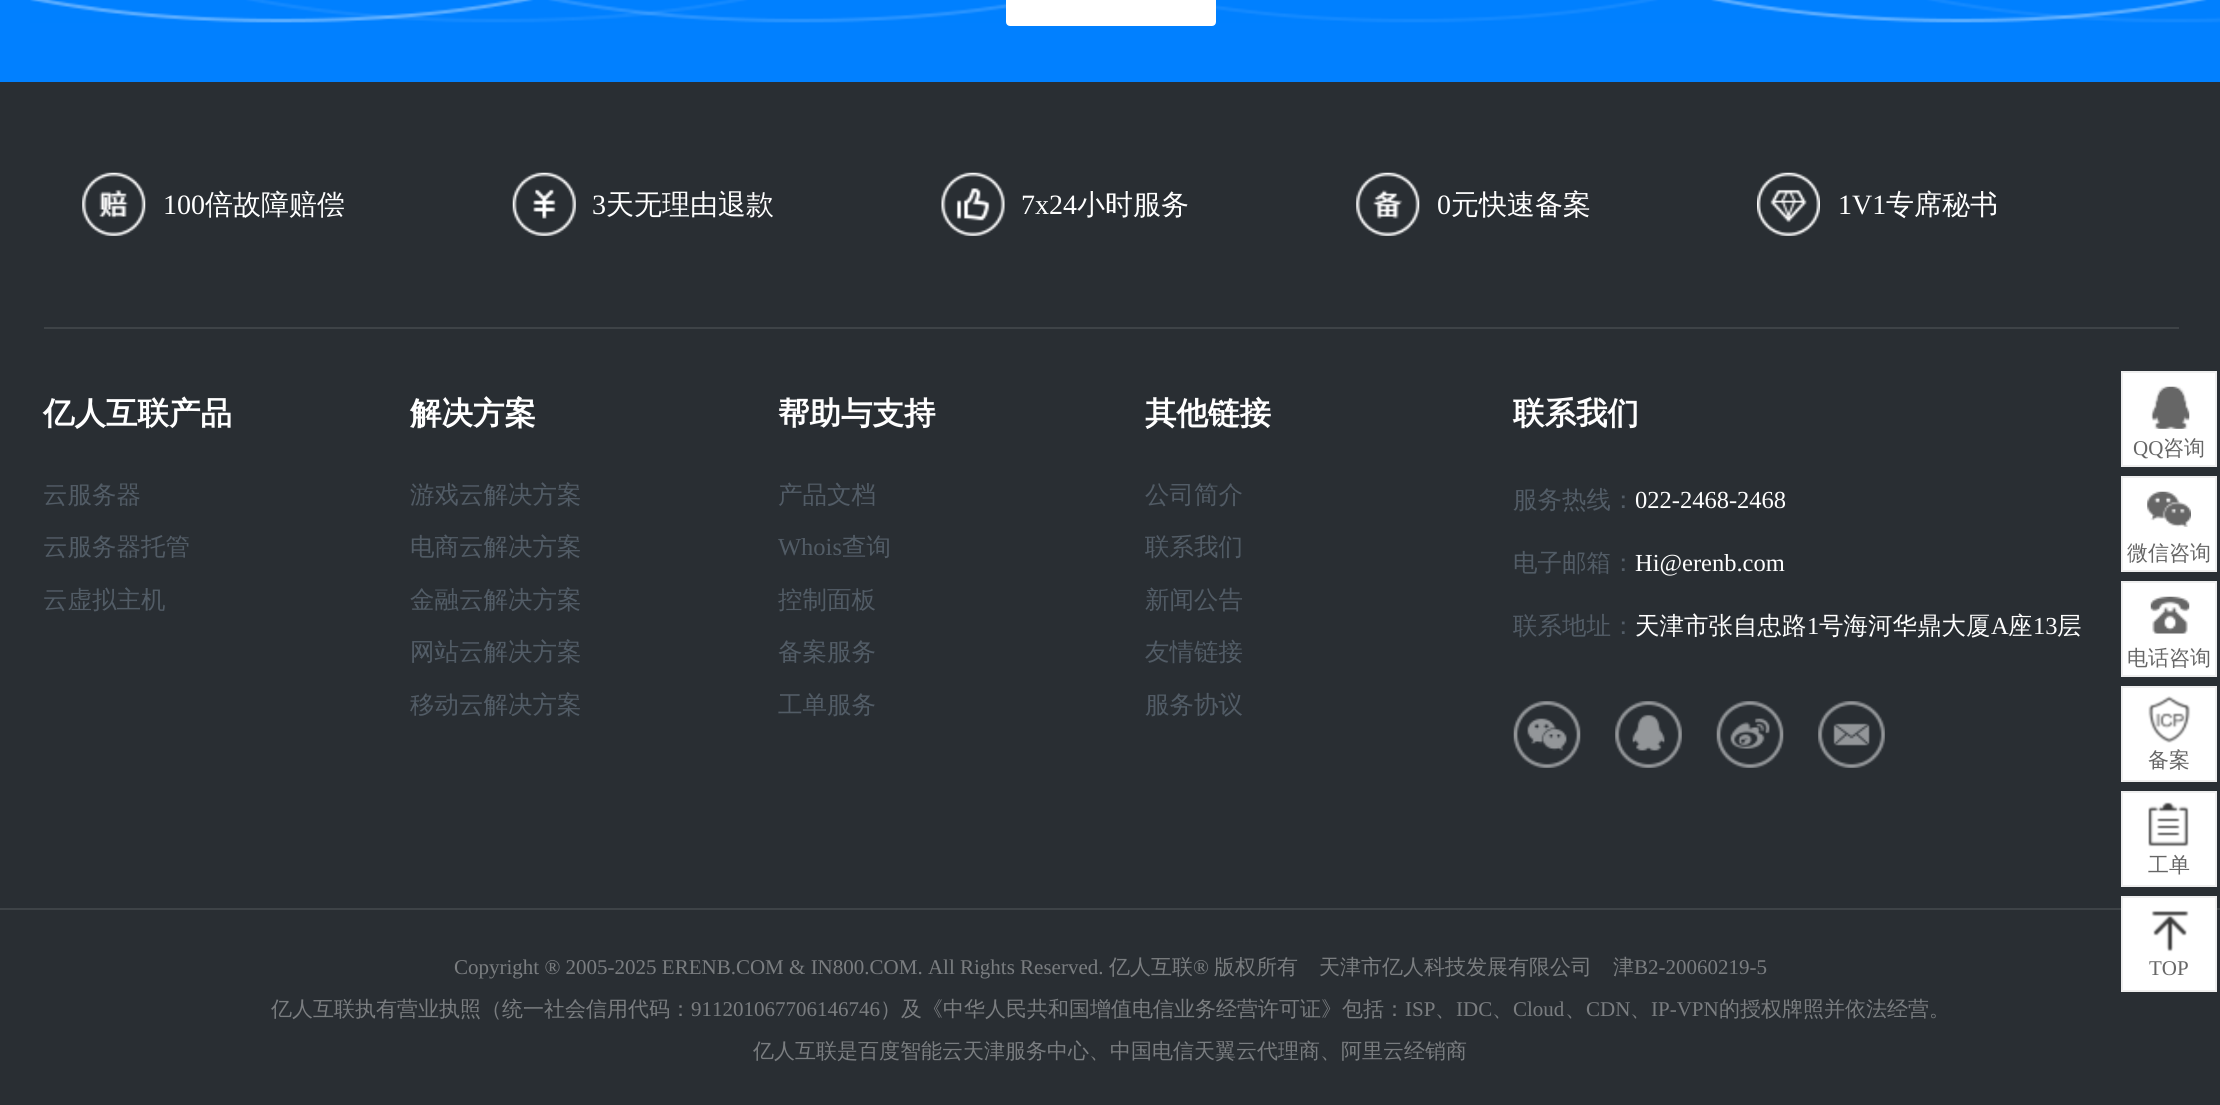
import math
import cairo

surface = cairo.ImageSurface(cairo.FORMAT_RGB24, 2220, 1105)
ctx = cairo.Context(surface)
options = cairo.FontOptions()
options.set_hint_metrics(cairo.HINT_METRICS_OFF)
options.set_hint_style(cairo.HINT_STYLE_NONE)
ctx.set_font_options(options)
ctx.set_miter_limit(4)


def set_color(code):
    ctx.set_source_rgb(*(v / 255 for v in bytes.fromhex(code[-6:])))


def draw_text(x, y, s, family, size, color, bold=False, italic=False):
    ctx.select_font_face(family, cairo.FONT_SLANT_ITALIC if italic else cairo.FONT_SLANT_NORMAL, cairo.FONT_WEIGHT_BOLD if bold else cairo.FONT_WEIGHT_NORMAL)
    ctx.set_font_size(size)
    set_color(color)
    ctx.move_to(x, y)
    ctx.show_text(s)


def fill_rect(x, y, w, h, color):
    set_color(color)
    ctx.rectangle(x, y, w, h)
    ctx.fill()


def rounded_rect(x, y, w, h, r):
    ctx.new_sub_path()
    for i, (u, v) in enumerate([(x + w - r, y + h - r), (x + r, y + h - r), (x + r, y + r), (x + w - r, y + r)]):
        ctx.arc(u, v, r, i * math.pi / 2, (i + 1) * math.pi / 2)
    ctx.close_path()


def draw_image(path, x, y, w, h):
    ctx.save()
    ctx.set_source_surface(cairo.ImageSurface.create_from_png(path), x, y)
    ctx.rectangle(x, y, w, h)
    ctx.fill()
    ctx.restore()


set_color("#0180ff")
ctx.paint()
draw_image("assets/img1.png", 30, 0, 2190, 23)
set_color("#ffffff")
rounded_rect(1007, -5, 208, 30, 3)
ctx.fill_preserve()
ctx.stroke()
fill_rect(0, 82, 2220, 826, "#292e33")
fill_rect(44, 327, 2135, 2, "#3e4347")
draw_image("assets/img2.png", 82, 172, 64, 64)
draw_text(163, 214, "100", "Liberation Serif", 28, "#ffffff")
draw_text(205, 214, "倍故障赔偿", "WenQuanYi Zen Hei Medium", 28, "#ffffff")
draw_image("assets/img3.png", 512, 172, 64, 64)
draw_text(592, 214, "3", "Liberation Serif", 28, "#ffffff")
draw_text(606, 214, "天无理由退款", "WenQuanYi Zen Hei Medium", 28, "#ffffff")
draw_image("assets/img4.png", 941, 172, 64, 64)
draw_text(1021, 214, "7x24", "Liberation Serif", 28, "#ffffff")
draw_text(1077, 214, "小时服务", "WenQuanYi Zen Hei Medium", 28, "#ffffff")
draw_image("assets/img5.png", 1356, 172, 64, 64)
draw_text(1437, 214, "0", "Liberation Serif", 28, "#ffffff")
draw_text(1451, 214, "元快速备案", "WenQuanYi Zen Hei Medium", 28, "#ffffff")
draw_image("assets/img6.png", 1757, 172, 63, 64)
draw_text(1838, 214, "1V1", "Liberation Serif", 28, "#ffffff")
draw_text(1886, 214, "专席秘书", "WenQuanYi Zen Hei Medium", 28, "#ffffff")
draw_text(43, 424, "亿人互联产品", "WenQuanYi Zen Hei", 31.5, "#ffffff", bold=True)
draw_text(43, 503, "云服务器", "WenQuanYi Zen Hei Medium", 24.5, "#525c66")
draw_text(43, 555, "云服务器托管", "WenQuanYi Zen Hei Medium", 24.5, "#525c66")
draw_text(43, 608, "云虚拟主机", "WenQuanYi Zen Hei Medium", 24.5, "#525c66")
draw_text(410, 424, "解决方案", "WenQuanYi Zen Hei", 31.5, "#ffffff", bold=True)
draw_text(410, 503, "游戏云解决方案", "WenQuanYi Zen Hei Medium", 24.5, "#525c66")
draw_text(410, 555, "电商云解决方案", "WenQuanYi Zen Hei Medium", 24.5, "#525c66")
draw_text(410, 608, "金融云解决方案", "WenQuanYi Zen Hei Medium", 24.5, "#525c66")
draw_text(410, 660, "网站云解决方案", "WenQuanYi Zen Hei Medium", 24.5, "#525c66")
draw_text(410, 713, "移动云解决方案", "WenQuanYi Zen Hei Medium", 24.5, "#525c66")
draw_text(778, 424, "帮助与支持", "WenQuanYi Zen Hei", 31.5, "#ffffff", bold=True)
draw_text(778, 503, "产品文档", "WenQuanYi Zen Hei Medium", 24.5, "#525c66")
draw_text(778, 555, "Whois", "Liberation Serif", 24.5, "#525c66")
draw_text(842, 555, "查询", "WenQuanYi Zen Hei Medium", 24.5, "#525c66")
draw_text(778, 608, "控制面板", "WenQuanYi Zen Hei Medium", 24.5, "#525c66")
draw_text(778, 660, "备案服务", "WenQuanYi Zen Hei Medium", 24.5, "#525c66")
draw_text(778, 713, "工单服务", "WenQuanYi Zen Hei Medium", 24.5, "#525c66")
draw_text(1145, 424, "其他链接", "WenQuanYi Zen Hei", 31.5, "#ffffff", bold=True)
draw_text(1145, 503, "公司简介", "WenQuanYi Zen Hei Medium", 24.5, "#525c66")
draw_text(1145, 555, "联系我们", "WenQuanYi Zen Hei Medium", 24.5, "#525c66")
draw_text(1145, 608, "新闻公告", "WenQuanYi Zen Hei Medium", 24.5, "#525c66")
draw_text(1145, 660, "友情链接", "WenQuanYi Zen Hei Medium", 24.5, "#525c66")
draw_text(1145, 713, "服务协议", "WenQuanYi Zen Hei Medium", 24.5, "#525c66")
draw_text(1513, 424, "联系我们", "WenQuanYi Zen Hei", 31.5, "#ffffff", bold=True)
draw_text(1513, 508, "服务热线：", "WenQuanYi Zen Hei Medium", 24.5, "#525c66")
draw_text(1635, 508, "022-2468-2468", "Liberation Serif", 24.5, "#ffffff")
draw_text(1513, 571, "电子邮箱：", "WenQuanYi Zen Hei Medium", 24.5, "#525c66")
draw_text(1635, 571, "Hi@erenb.com", "Liberation Serif", 24.5, "#ffffff")
draw_text(1513, 634, "联系地址：", "WenQuanYi Zen Hei Medium", 24.5, "#525c66")
draw_text(1635, 634, "天津市张自忠路", "WenQuanYi Zen Hei Medium", 24.5, "#ffffff")
draw_text(1807, 634, "1", "Liberation Serif", 24.5, "#ffffff")
draw_text(1819, 634, "号海河华鼎大厦", "WenQuanYi Zen Hei Medium", 24.5, "#ffffff")
draw_text(1991, 634, "A", "Liberation Serif", 24.5, "#ffffff")
draw_text(2008, 634, "座", "WenQuanYi Zen Hei Medium", 24.5, "#ffffff")
draw_text(2033, 634, "13", "Liberation Serif", 24.5, "#ffffff")
draw_text(2057, 634, "层", "WenQuanYi Zen Hei Medium", 24.5, "#ffffff")
draw_image("assets/img7.png", 1513, 701, 68, 67)
draw_image("assets/img8.png", 1615, 701, 67, 67)
draw_image("assets/img9.png", 1716, 701, 68, 67)
draw_image("assets/img10.png", 1818, 701, 67, 67)
fill_rect(2123, 373, 92, 92, "#ffffff")
draw_image("assets/img11.png", 2151, 386, 39, 43)
ctx.rectangle(2122, 372, 94, 94)
set_color("#eeeeee")
ctx.stroke()
draw_text(2133, 455, "QQ", "Liberation Serif", 21, "#666666")
draw_text(2163, 455, "咨询", "WenQuanYi Zen Hei Medium", 21, "#666666")
fill_rect(2123, 478, 92, 92, "#ffffff")
draw_image("assets/img12.png", 2147, 491, 44, 36)
ctx.rectangle(2122, 477, 94, 94)
set_color("#eeeeee")
ctx.stroke()
draw_text(2127, 560, "微信咨询", "WenQuanYi Zen Hei Medium", 21, "#666666")
fill_rect(2123, 583, 92, 92, "#ffffff")
draw_image("assets/img13.png", 2150, 596, 40, 38)
ctx.rectangle(2122, 582, 94, 94)
set_color("#eeeeee")
ctx.stroke()
draw_text(2127, 665, "电话咨询", "WenQuanYi Zen Hei Medium", 21, "#666666")
set_color("#ffffff")
ctx.rectangle(2122, 687, 94, 94)
ctx.fill_preserve()
set_color("#eeeeee")
ctx.stroke()
draw_image("assets/img14.png", 2148, 696, 43, 47)
draw_text(2148, 767, "备案", "WenQuanYi Zen Hei Medium", 21, "#666666")
set_color("#ffffff")
ctx.rectangle(2122, 792, 94, 94)
ctx.fill_preserve()
set_color("#eeeeee")
ctx.stroke()
draw_image("assets/img15.png", 2148, 802, 41, 45)
draw_text(2148, 872, "工单", "WenQuanYi Zen Hei Medium", 21, "#666666")
fill_rect(0, 910, 2220, 195, "#292e33")
fill_rect(0, 908, 2220, 2, "#3e4347")
set_color("#ffffff")
ctx.rectangle(2122, 897, 94, 94)
ctx.fill_preserve()
set_color("#eeeeee")
ctx.stroke()
draw_image("assets/img16.png", 2151, 910, 38, 42)
draw_text(2149, 975, "TOP", "Liberation Serif", 21, "#666666")
draw_text(454, 974, "Copyright ® 2005-2025 ERENB.COM & IN800.COM. All Rights Reserved.", "Liberation Serif", 21, "#7a7d80")
draw_text(1109, 974, "亿人互联", "WenQuanYi Zen Hei Medium", 21, "#7a7d80")
draw_text(1193, 974, "®", "Liberation Serif", 21, "#7a7d80")
draw_text(1214, 974, "版权所有　天津市亿人科技发展有限公司", "WenQuanYi Zen Hei Medium", 21, "#7a7d80")
draw_text(1613, 974, "津", "WenQuanYi Zen Hei Medium", 21, "#7a7d80")
draw_text(1634, 974, "B2-20060219-5", "Liberation Serif", 21, "#7a7d80")
draw_text(271, 1016, "亿人互联执有营业执照（统一社会信用代码：", "WenQuanYi Zen Hei Medium", 21, "#7a7d80")
draw_text(691, 1016, "911201067706146746", "Liberation Serif", 21, "#7a7d80")
draw_text(880, 1016, "）及《中华人民共和国增值电信业务经营许可证》包括：", "WenQuanYi Zen Hei Medium", 21, "#7a7d80")
draw_text(1405, 1016, "ISP", "Liberation Serif", 21, "#7a7d80")
draw_text(1435, 1016, "、", "WenQuanYi Zen Hei Medium", 21, "#7a7d80")
draw_text(1456, 1016, "IDC", "Liberation Serif", 21, "#7a7d80")
draw_text(1492, 1016, "、", "WenQuanYi Zen Hei Medium", 21, "#7a7d80")
draw_text(1513, 1016, "Cloud", "Liberation Serif", 21, "#7a7d80")
draw_text(1565, 1016, "、", "WenQuanYi Zen Hei Medium", 21, "#7a7d80")
draw_text(1586, 1016, "CDN", "Liberation Serif", 21, "#7a7d80")
draw_text(1630, 1016, "、", "WenQuanYi Zen Hei Medium", 21, "#7a7d80")
draw_text(1651, 1016, "IP-VPN", "Liberation Serif", 21, "#7a7d80")
draw_text(1719, 1016, "的授权牌照并依法经营。", "WenQuanYi Zen Hei Medium", 21, "#7a7d80")
draw_text(753, 1058, "亿人互联是百度智能云天津服务中心、中国电信天翼云代理商、阿里云经销商", "WenQuanYi Zen Hei Medium", 21, "#7a7d80")
surface.write_to_png("output.png")
